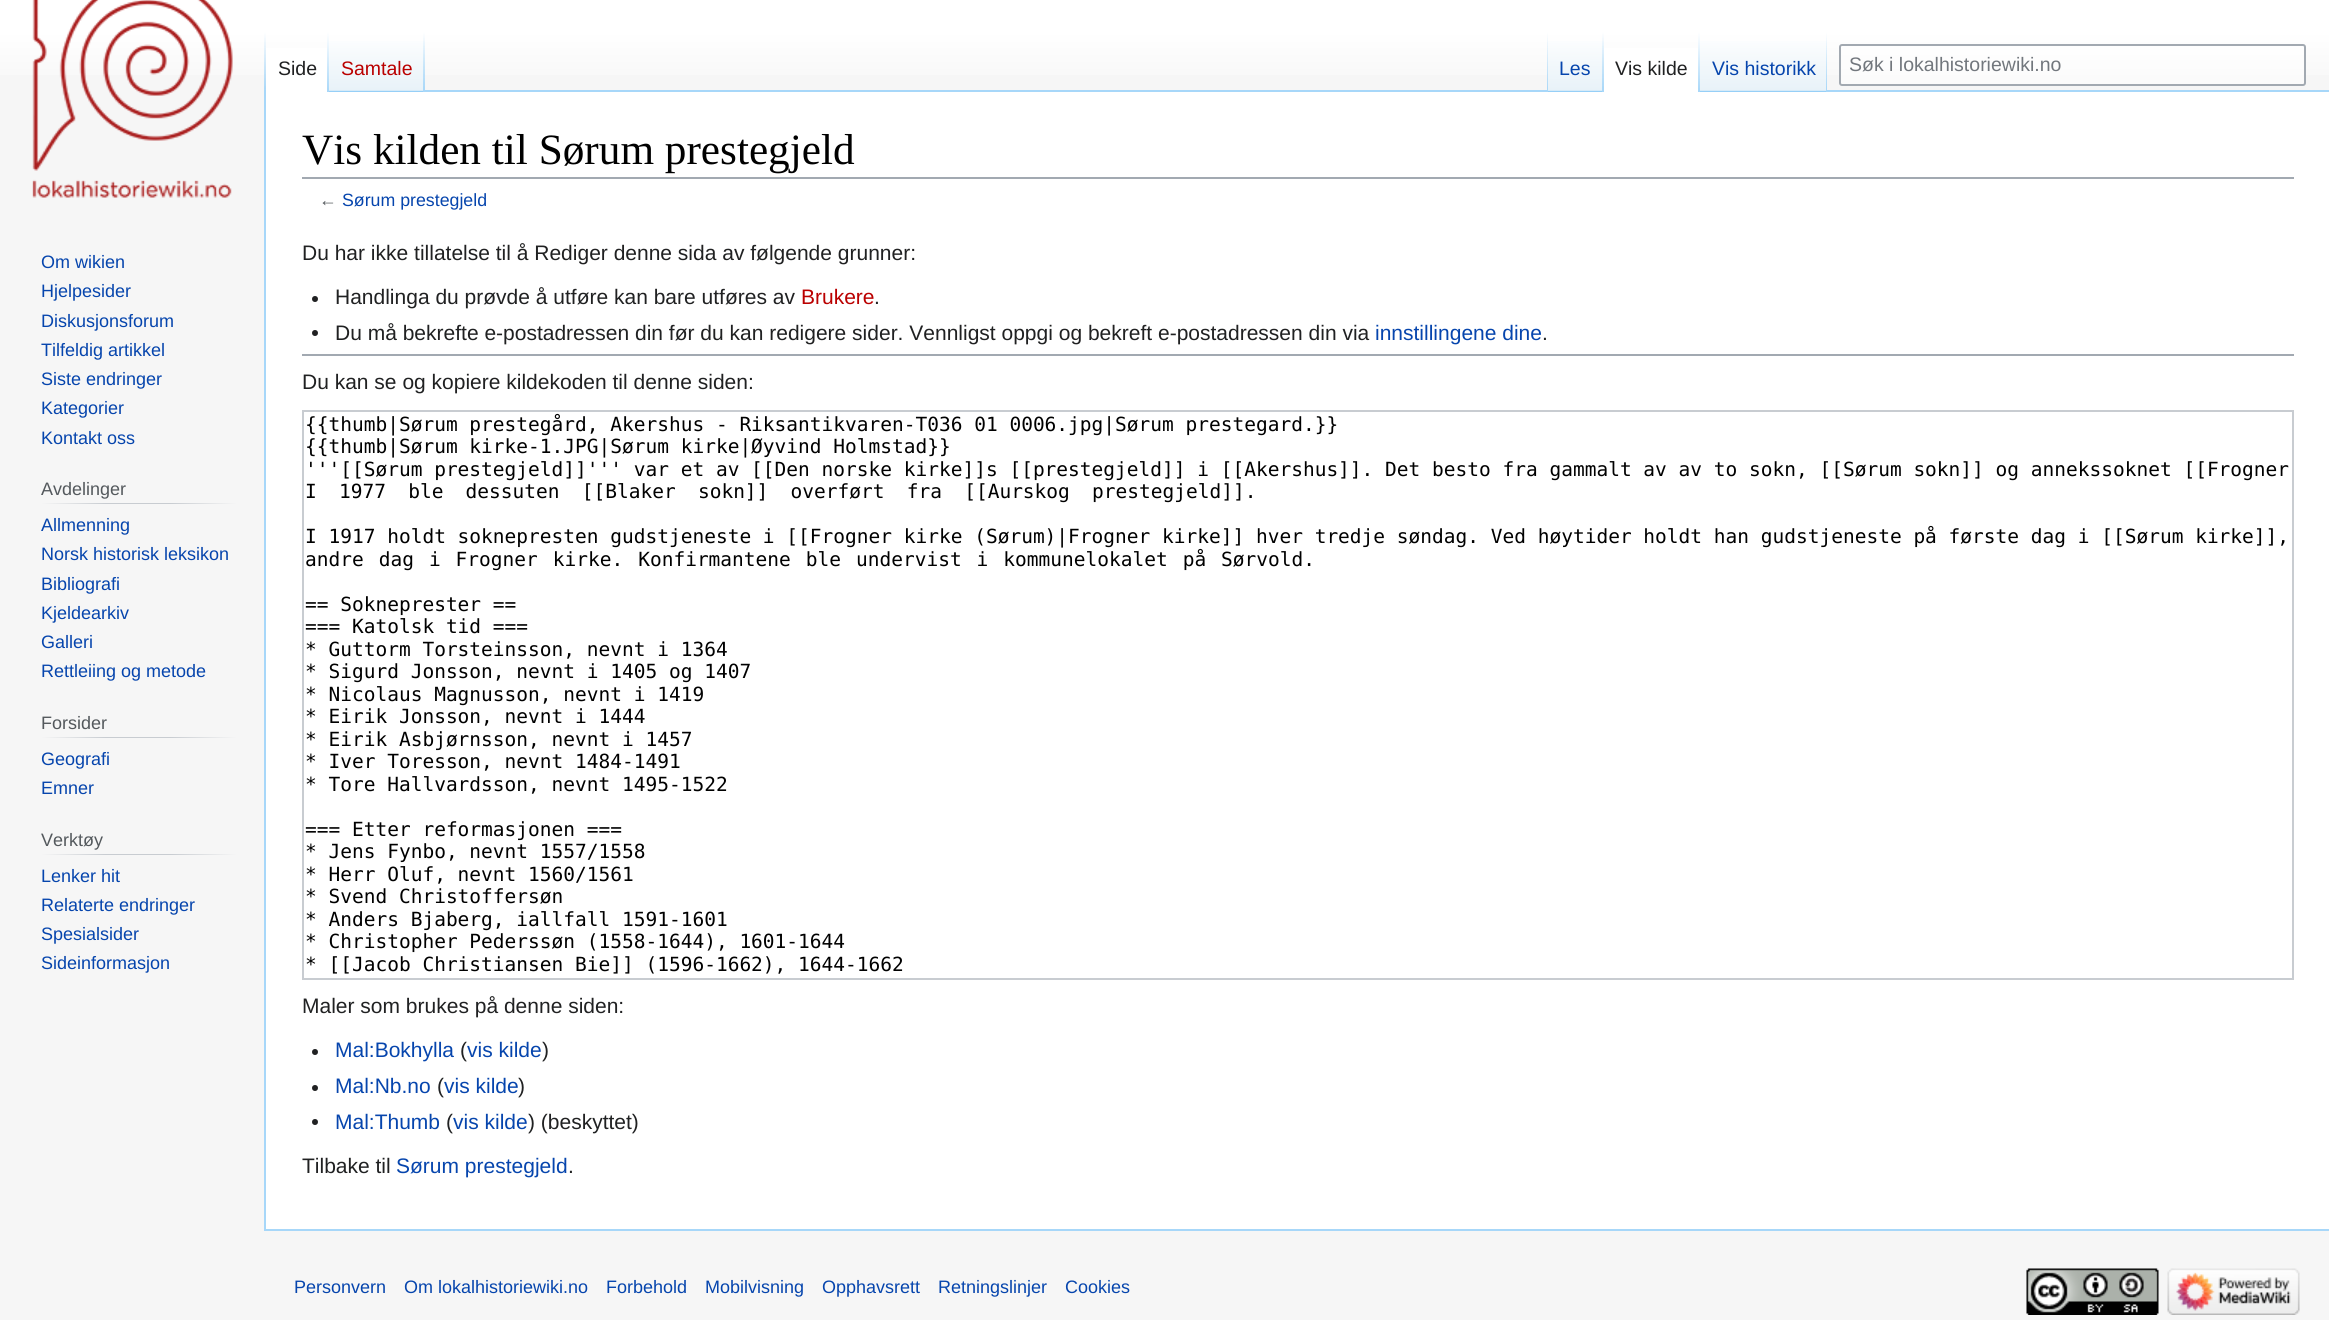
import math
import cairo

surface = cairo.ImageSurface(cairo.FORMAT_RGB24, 2329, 1320)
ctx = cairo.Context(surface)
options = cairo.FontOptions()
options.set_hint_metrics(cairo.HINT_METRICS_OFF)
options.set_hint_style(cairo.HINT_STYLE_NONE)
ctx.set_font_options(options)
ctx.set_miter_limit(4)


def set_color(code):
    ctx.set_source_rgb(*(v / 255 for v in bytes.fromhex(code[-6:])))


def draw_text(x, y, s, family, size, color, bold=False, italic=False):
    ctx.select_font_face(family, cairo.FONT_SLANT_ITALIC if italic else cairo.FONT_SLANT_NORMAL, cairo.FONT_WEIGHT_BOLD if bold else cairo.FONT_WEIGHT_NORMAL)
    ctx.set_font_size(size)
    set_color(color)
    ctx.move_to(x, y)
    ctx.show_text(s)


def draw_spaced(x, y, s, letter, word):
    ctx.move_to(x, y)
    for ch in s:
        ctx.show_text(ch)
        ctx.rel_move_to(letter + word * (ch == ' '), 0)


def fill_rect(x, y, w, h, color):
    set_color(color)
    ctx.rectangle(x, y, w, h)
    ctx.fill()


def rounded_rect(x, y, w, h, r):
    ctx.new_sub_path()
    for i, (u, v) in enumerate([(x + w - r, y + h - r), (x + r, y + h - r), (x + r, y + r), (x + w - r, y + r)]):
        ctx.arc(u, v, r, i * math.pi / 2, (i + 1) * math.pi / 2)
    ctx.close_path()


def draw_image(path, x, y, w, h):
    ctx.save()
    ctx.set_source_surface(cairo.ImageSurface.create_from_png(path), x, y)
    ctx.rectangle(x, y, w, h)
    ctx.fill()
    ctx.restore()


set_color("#f6f6f6")
ctx.paint()
gradient = cairo.LinearGradient(1165, -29, 1165, 92)
gradient.add_color_stop_rgba(0.5, 1, 1, 1, 1)
gradient.add_color_stop_rgba(1, 0.965, 0.965, 0.965, 1)
ctx.set_source(gradient)
ctx.rectangle(0, 0, 2329, 75)
ctx.fill()
fill_rect(264, 1229, 2065, 2, "#a7d7f9")
fill_rect(264, 90, 2, 1140, "#a7d7f9")
gradient = cairo.LinearGradient(265, 32, 265, 92)
gradient.add_color_stop_rgba(0, 0.655, 0.843, 0.976, 0)
gradient.add_color_stop_rgba(1, 0.655, 0.843, 0.976, 1)
ctx.set_source(gradient)
ctx.rectangle(264, 32, 2, 60)
ctx.fill()
fill_rect(266, 48, 61, 44, "#ffffff")
gradient = cairo.LinearGradient(328, 32, 328, 92)
gradient.add_color_stop_rgba(0, 1, 1, 1, 1)
gradient.add_color_stop_rgba(1, 0.655, 0.843, 0.976, 1)
ctx.set_source(gradient)
ctx.rectangle(327, 32, 2, 60)
ctx.fill()
draw_text(278, 75, "Side", "Liberation Sans", 19.5, "#202122")
gradient = cairo.LinearGradient(377, 92, 377, 32)
gradient.add_color_stop_rgba(0, 0.467, 0.757, 0.965, 1)
gradient.add_color_stop_rgba(0.03, 0.91, 0.949, 0.973, 1)
gradient.add_color_stop_rgba(1, 1, 1, 1, 1)
ctx.set_source(gradient)
ctx.rectangle(329, 41, 96, 51)
ctx.fill()
gradient = cairo.LinearGradient(424, 32, 424, 92)
gradient.add_color_stop_rgba(0, 0.655, 0.843, 0.976, 0)
gradient.add_color_stop_rgba(1, 0.655, 0.843, 0.976, 1)
ctx.set_source(gradient)
ctx.rectangle(423, 32, 2, 60)
ctx.fill()
draw_text(341, 75, "Samtale", "Liberation Sans", 19.5, "#ba0000")
fill_rect(425, 90, 1904, 2, "#a7d7f9")
gradient = cairo.LinearGradient(1547, 32, 1547, 92)
gradient.add_color_stop_rgba(0, 0.655, 0.843, 0.976, 0)
gradient.add_color_stop_rgba(1, 0.655, 0.843, 0.976, 1)
ctx.set_source(gradient)
ctx.rectangle(1547, 32, 1, 60)
ctx.fill()
gradient = cairo.LinearGradient(1576, 92, 1576, 32)
gradient.add_color_stop_rgba(0, 0.467, 0.757, 0.965, 1)
gradient.add_color_stop_rgba(0.03, 0.91, 0.949, 0.973, 1)
gradient.add_color_stop_rgba(1, 1, 1, 1, 1)
ctx.set_source(gradient)
ctx.rectangle(1548, 41, 56, 51)
ctx.fill()
gradient = cairo.LinearGradient(1603, 32, 1603, 92)
gradient.add_color_stop_rgba(0, 0.655, 0.843, 0.976, 0)
gradient.add_color_stop_rgba(1, 0.655, 0.843, 0.976, 1)
ctx.set_source(gradient)
ctx.rectangle(1602, 32, 2, 60)
ctx.fill()
draw_text(1559, 75, "Les", "Liberation Sans", 19.5, "#0645ad")
fill_rect(1604, 48, 94, 44, "#ffffff")
gradient = cairo.LinearGradient(1699, 32, 1699, 92)
gradient.add_color_stop_rgba(0, 1, 1, 1, 1)
gradient.add_color_stop_rgba(1, 0.655, 0.843, 0.976, 1)
ctx.set_source(gradient)
ctx.rectangle(1698, 32, 2, 60)
ctx.fill()
draw_text(1615, 75, "Vis kilde", "Liberation Sans", 19.5, "#202122")
gradient = cairo.LinearGradient(1763, 92, 1763, 32)
gradient.add_color_stop_rgba(0, 0.467, 0.757, 0.965, 1)
gradient.add_color_stop_rgba(0.03, 0.91, 0.949, 0.973, 1)
gradient.add_color_stop_rgba(1, 1, 1, 1, 1)
ctx.set_source(gradient)
ctx.rectangle(1700, 41, 127, 51)
ctx.fill()
gradient = cairo.LinearGradient(1826, 32, 1826, 92)
gradient.add_color_stop_rgba(0, 0.655, 0.843, 0.976, 0)
gradient.add_color_stop_rgba(1, 0.655, 0.843, 0.976, 1)
ctx.set_source(gradient)
ctx.rectangle(1826, 32, 1, 60)
ctx.fill()
draw_text(1712, 75, "Vis historikk", "Liberation Sans", 19.5, "#0645ad")
ctx.set_source_rgba(1, 1, 1, 0.5)
rounded_rect(1840, 45, 465, 40, 2)
ctx.fill_preserve()
set_color("#a2a9b1")
ctx.stroke()
draw_text(1849, 71, "Søk i lokalhistoriewiki.no", "Liberation Sans", 19.5, "#72777d")
draw_image("assets/img1.png", 32, 0, 201, 198)
draw_text(41, 268, "Om wikien", "Liberation Sans", 18, "#0645ad")
draw_text(41, 297, "Hjelpesider", "Liberation Sans", 18, "#0645ad")
draw_text(41, 327, "Diskusjonsforum", "Liberation Sans", 18, "#0645ad")
draw_text(41, 356, "Tilfeldig artikkel", "Liberation Sans", 18, "#0645ad")
draw_text(41, 385, "Siste endringer", "Liberation Sans", 18, "#0645ad")
draw_text(41, 414, "Kategorier", "Liberation Sans", 18, "#0645ad")
draw_text(41, 444, "Kontakt oss", "Liberation Sans", 18, "#0645ad")
gradient = cairo.LinearGradient(41, 503, 237, 503)
gradient.add_color_stop_rgba(0, 0.965, 0.965, 0.965, 1)
gradient.add_color_stop_rgba(0.33, 0.784, 0.8, 0.82, 1)
gradient.add_color_stop_rgba(0.66, 0.784, 0.8, 0.82, 1)
gradient.add_color_stop_rgba(1, 0.965, 0.965, 0.965, 1)
ctx.set_source(gradient)
ctx.rectangle(41, 503, 196, 1)
ctx.fill()
draw_text(41, 495, "Avdelinger", "Liberation Sans", 18, "#54595d")
draw_text(41, 531, "Allmenning", "Liberation Sans", 18, "#0645ad")
draw_text(41, 560, "Norsk historisk leksikon", "Liberation Sans", 18, "#0645ad")
draw_text(41, 590, "Bibliografi", "Liberation Sans", 18, "#0645ad")
draw_text(41, 619, "Kjeldearkiv", "Liberation Sans", 18, "#0645ad")
draw_text(41, 648, "Galleri", "Liberation Sans", 18, "#0645ad")
draw_text(41, 677, "Rettleiing og metode", "Liberation Sans", 18, "#0645ad")
gradient = cairo.LinearGradient(41, 737, 237, 737)
gradient.add_color_stop_rgba(0, 0.965, 0.965, 0.965, 1)
gradient.add_color_stop_rgba(0.33, 0.784, 0.8, 0.82, 1)
gradient.add_color_stop_rgba(0.66, 0.784, 0.8, 0.82, 1)
gradient.add_color_stop_rgba(1, 0.965, 0.965, 0.965, 1)
ctx.set_source(gradient)
ctx.rectangle(41, 737, 196, 1)
ctx.fill()
draw_text(41, 729, "Forsider", "Liberation Sans", 18, "#54595d")
draw_text(41, 765, "Geografi", "Liberation Sans", 18, "#0645ad")
draw_text(41, 794, "Emner", "Liberation Sans", 18, "#0645ad")
gradient = cairo.LinearGradient(41, 854, 237, 854)
gradient.add_color_stop_rgba(0, 0.965, 0.965, 0.965, 1)
gradient.add_color_stop_rgba(0.33, 0.784, 0.8, 0.82, 1)
gradient.add_color_stop_rgba(0.66, 0.784, 0.8, 0.82, 1)
gradient.add_color_stop_rgba(1, 0.965, 0.965, 0.965, 1)
ctx.set_source(gradient)
ctx.rectangle(41, 854, 196, 1)
ctx.fill()
draw_text(41, 846, "Verktøy", "Liberation Sans", 18, "#54595d")
draw_text(41, 882, "Lenker hit", "Liberation Sans", 18, "#0645ad")
draw_text(41, 911, "Relaterte endringer", "Liberation Sans", 18, "#0645ad")
draw_text(41, 940, "Spesialsider", "Liberation Sans", 18, "#0645ad")
draw_text(41, 969, "Sideinformasjon", "Liberation Sans", 18, "#0645ad")
fill_rect(266, 92, 2063, 1137, "#ffffff")
fill_rect(302, 177, 1992, 2, "#a2a9b1")
draw_text(302, 164, "Vis kilden til Sørum prestegjeld", "Liberation Serif", 43.25, "#000000")
draw_text(319, 206, "←", "Liberation Sans", 17.75, "#54595d")
draw_text(342, 206, "Sørum prestegjeld", "Liberation Sans", 17.75, "#0645ad")
draw_text(302, 260, "Du har ikke tillatelse til å Rediger denne sida av følgende grunner:", "Liberation Sans", 21, "#202122")
ctx.new_path()
ctx.arc(315, 299, 3, 0, 2 * math.pi)
ctx.fill()
draw_text(335, 304, "Handlinga du prøvde å utføre kan bare utføres av", "Liberation Sans", 21, "#202122")
draw_text(801, 304, "Brukere", "Liberation Sans", 21, "#ba0000")
draw_text(874, 304, ".", "Liberation Sans", 21, "#202122")
ctx.new_path()
ctx.arc(315, 333, 3, 0, 2 * math.pi)
ctx.fill()
draw_text(335, 340, "Du må bekrefte e-postadressen din før du kan redigere sider. Vennligst oppgi og bekreft e-postadressen din via", "Liberation Sans", 21, "#202122")
draw_text(1375, 340, "innstillingene dine", "Liberation Sans", 21, "#0645ad")
draw_text(1542, 340, ".", "Liberation Sans", 21, "#202122")
fill_rect(302, 354, 1992, 2, "#a2a9b1")
draw_text(302, 389, "Du kan se og kopiere kildekoden til denne siden:", "Liberation Sans", 21, "#202122")
ctx.rectangle(303, 411, 1990, 568)
set_color("#c8ccd1")
ctx.stroke()
draw_text(305, 431, "{{thumb|Sørum prestegård, Akershus - Riksantikvaren-T036 01 0006.jpg|Sørum prestegard.}}", "DejaVu Sans Mono", 19.5, "#000000")
draw_text(305, 453, "{{thumb|Sørum kirke-1.JPG|Sørum kirke|Øyvind Holmstad}}", "DejaVu Sans Mono", 19.5, "#000000")
draw_text(305, 476, "'''[[Sørum prestegjeld]]''' var et av [[Den norske kirke]]s [[prestegjeld]] i [[Akershus]]. Det besto fra gammalt av av to sokn, [[Sørum sokn]] og annekssoknet [[Frogner", "DejaVu Sans Mono", 19.5, "#000000")
draw_spaced(305, 498, "I 1977 ble dessuten [[Blaker sokn]] overført fra [[Aurskog prestegjeld]].", 0, 10.5)
draw_text(305, 543, "I 1917 holdt soknepresten gudstjeneste i [[Frogner kirke (Sørum)|Frogner kirke]] hver tredje søndag. Ved høytider holdt han gudstjeneste på første dag i [[Sørum kirke]],", "DejaVu Sans Mono", 19.5, "#000000")
draw_spaced(305, 566, "andre dag i Frogner kirke. Konfirmantene ble undervist i kommunelokalet på Sørvold.", 0, 3.25)
draw_text(305, 611, "== Sokneprester ==", "DejaVu Sans Mono", 19.5, "#000000")
draw_text(305, 633, "=== Katolsk tid ===", "DejaVu Sans Mono", 19.5, "#000000")
draw_text(305, 656, "* Guttorm Torsteinsson, nevnt i 1364", "DejaVu Sans Mono", 19.5, "#000000")
draw_text(305, 678, "* Sigurd Jonsson, nevnt i 1405 og 1407", "DejaVu Sans Mono", 19.5, "#000000")
draw_text(305, 701, "* Nicolaus Magnusson, nevnt i 1419", "DejaVu Sans Mono", 19.5, "#000000")
draw_text(305, 723, "* Eirik Jonsson, nevnt i 1444", "DejaVu Sans Mono", 19.5, "#000000")
draw_text(305, 746, "* Eirik Asbjørnsson, nevnt i 1457", "DejaVu Sans Mono", 19.5, "#000000")
draw_text(305, 768, "* Iver Toresson, nevnt 1484-1491", "DejaVu Sans Mono", 19.5, "#000000")
draw_text(305, 791, "* Tore Hallvardsson, nevnt 1495-1522", "DejaVu Sans Mono", 19.5, "#000000")
draw_text(305, 836, "=== Etter reformasjonen ===", "DejaVu Sans Mono", 19.5, "#000000")
draw_text(305, 858, "* Jens Fynbo, nevnt 1557/1558", "DejaVu Sans Mono", 19.5, "#000000")
draw_text(305, 881, "* Herr Oluf, nevnt 1560/1561", "DejaVu Sans Mono", 19.5, "#000000")
draw_text(305, 903, "* Svend Christoffersøn", "DejaVu Sans Mono", 19.5, "#000000")
draw_text(305, 926, "* Anders Bjaberg, iallfall 1591-1601", "DejaVu Sans Mono", 19.5, "#000000")
draw_text(305, 948, "* Christopher Pederssøn (1558-1644), 1601-1644", "DejaVu Sans Mono", 19.5, "#000000")
draw_text(305, 971, "* [[Jacob Christiansen Bie]] (1596-1662), 1644-1662", "DejaVu Sans Mono", 19.5, "#000000")
draw_text(302, 1013, "Maler som brukes på denne siden:", "Liberation Sans", 21, "#202122")
ctx.new_path()
ctx.arc(315, 1052, 3, 0, 2 * math.pi)
ctx.fill()
draw_text(335, 1057, "Mal:Bokhylla", "Liberation Sans", 21, "#0645ad")
draw_text(460, 1057, "(", "Liberation Sans", 21, "#202122")
draw_text(467, 1057, "vis kilde", "Liberation Sans", 21, "#0645ad")
draw_text(542, 1057, ")", "Liberation Sans", 21, "#202122")
ctx.new_path()
ctx.arc(315, 1088, 3, 0, 2 * math.pi)
ctx.fill()
draw_text(335, 1093, "Mal:Nb.no", "Liberation Sans", 21, "#0645ad")
draw_text(437, 1093, "(", "Liberation Sans", 21, "#202122")
draw_text(444, 1093, "vis kilde", "Liberation Sans", 21, "#0645ad")
draw_text(518, 1093, ")", "Liberation Sans", 21, "#202122")
ctx.new_path()
ctx.arc(315, 1122, 3, 0, 2 * math.pi)
ctx.fill()
draw_text(335, 1129, "Mal:Thumb", "Liberation Sans", 21, "#0645ad")
draw_text(446, 1129, "(", "Liberation Sans", 21, "#202122")
draw_text(453, 1129, "vis kilde", "Liberation Sans", 21, "#0645ad")
draw_text(528, 1129, ") (beskyttet)", "Liberation Sans", 21, "#202122")
draw_text(302, 1173, "Tilbake til", "Liberation Sans", 21, "#202122")
draw_text(396, 1173, "Sørum prestegjeld", "Liberation Sans", 21, "#0645ad")
draw_text(568, 1173, ".", "Liberation Sans", 21, "#202122")
draw_text(294, 1293, "Personvern", "Liberation Sans", 18, "#0645ad")
draw_text(404, 1293, "Om lokalhistoriewiki.no", "Liberation Sans", 18, "#0645ad")
draw_text(606, 1293, "Forbehold", "Liberation Sans", 18, "#0645ad")
draw_text(705, 1293, "Mobilvisning", "Liberation Sans", 18, "#0645ad")
draw_text(822, 1293, "Opphavsrett", "Liberation Sans", 18, "#0645ad")
draw_text(938, 1293, "Retningslinjer", "Liberation Sans", 18, "#0645ad")
draw_text(1065, 1293, "Cookies", "Liberation Sans", 18, "#0645ad")
draw_image("assets/img2.png", 2026, 1268, 133, 47)
draw_image("assets/img3.png", 2167, 1268, 133, 47)
surface.write_to_png("output.png")
